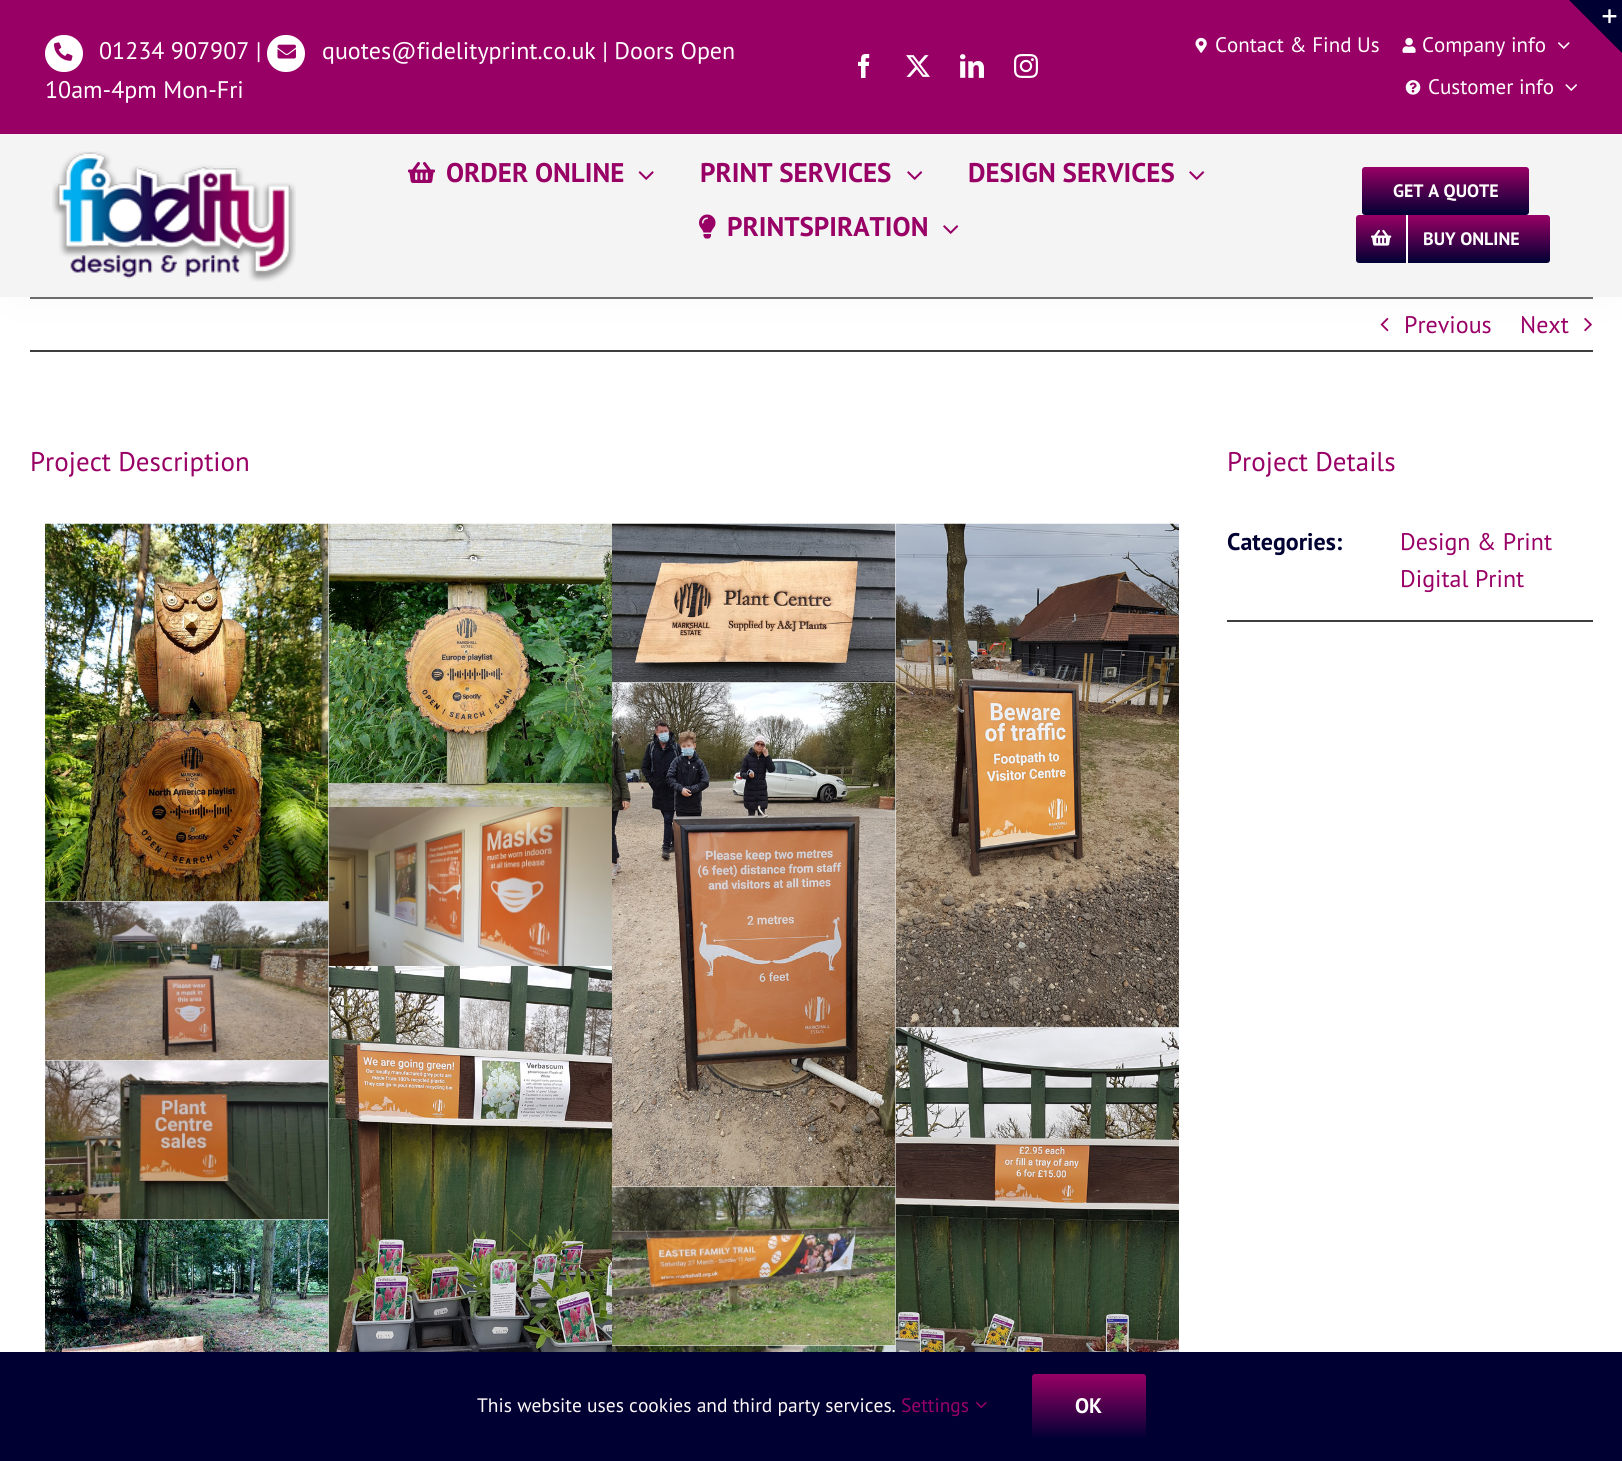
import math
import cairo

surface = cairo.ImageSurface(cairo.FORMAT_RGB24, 1622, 1461)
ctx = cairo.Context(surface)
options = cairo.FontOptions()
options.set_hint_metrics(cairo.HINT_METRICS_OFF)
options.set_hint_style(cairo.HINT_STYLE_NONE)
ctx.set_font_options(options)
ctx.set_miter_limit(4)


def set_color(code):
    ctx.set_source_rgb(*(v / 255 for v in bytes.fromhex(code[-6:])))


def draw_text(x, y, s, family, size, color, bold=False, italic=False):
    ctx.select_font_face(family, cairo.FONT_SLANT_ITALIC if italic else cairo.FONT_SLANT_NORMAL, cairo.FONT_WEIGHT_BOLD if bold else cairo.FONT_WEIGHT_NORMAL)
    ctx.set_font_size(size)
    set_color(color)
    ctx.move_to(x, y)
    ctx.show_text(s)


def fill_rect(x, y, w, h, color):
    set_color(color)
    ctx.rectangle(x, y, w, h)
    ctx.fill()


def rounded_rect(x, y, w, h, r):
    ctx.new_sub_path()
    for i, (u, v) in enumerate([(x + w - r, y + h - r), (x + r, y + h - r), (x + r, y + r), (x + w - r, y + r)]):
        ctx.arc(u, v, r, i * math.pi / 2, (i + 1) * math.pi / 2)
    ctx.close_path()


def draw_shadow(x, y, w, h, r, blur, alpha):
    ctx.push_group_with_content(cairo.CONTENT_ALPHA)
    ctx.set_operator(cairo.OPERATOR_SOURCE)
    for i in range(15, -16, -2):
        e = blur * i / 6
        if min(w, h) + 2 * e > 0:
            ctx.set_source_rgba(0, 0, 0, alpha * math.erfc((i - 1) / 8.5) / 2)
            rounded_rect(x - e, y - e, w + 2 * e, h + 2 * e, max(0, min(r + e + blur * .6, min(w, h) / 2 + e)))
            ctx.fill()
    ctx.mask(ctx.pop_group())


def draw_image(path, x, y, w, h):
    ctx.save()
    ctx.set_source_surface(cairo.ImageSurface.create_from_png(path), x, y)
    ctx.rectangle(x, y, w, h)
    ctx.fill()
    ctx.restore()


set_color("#ffffff")
ctx.paint()
fill_rect(30, 297, 1563, 2, "#3e3e3e")
fill_rect(30, 350, 1563, 2, "#3e3e3e")
set_color("#f2f2f2")
draw_shadow(20, 156, 1587, 128, 0, 22.5, 1)
fill_rect(0, 0, 1622, 134, "#990066")
draw_image("assets/img10.png", 1558, 42, 12, 7)
set_color("#000033")
ctx.new_path()
ctx.move_to(1569, 0)
ctx.line_to(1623, 0)
ctx.line_to(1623, 54)
ctx.close_path()
ctx.fill()
draw_image("assets/img1.png", 1602, 9, 15, 15)
set_color("#ffffff")
rounded_rect(45, 35, 38, 37, 18.5)
ctx.fill()
draw_image("assets/img2.png", 54, 42, 19, 19)
draw_text(99, 59, "01234 907907 |", "PT Sans", 24, "#ffffff")
rounded_rect(267, 35, 38, 37, 18.5)
ctx.fill()
draw_image("assets/img3.png", 277, 44, 19, 15)
draw_text(322, 59, "quotes@fidelityprint.co.uk | Doors Open", "PT Sans", 24, "#ffffff")
draw_text(45, 98, "10am-4pm Mon-Fri", "PT Sans", 24, "#ffffff")
draw_image("assets/img4.png", 858, 54, 12, 24)
draw_image("assets/img5.png", 906, 55, 24, 22)
draw_image("assets/img6.png", 960, 54, 24, 24)
draw_image("assets/img7.png", 1014, 54, 24, 24)
draw_image("assets/img8.png", 1195, 37, 12, 16)
draw_text(1215, 52, "Contact & Find Us", "PT Sans", 21, "#ffffff")
draw_image("assets/img9.png", 1402, 37, 14, 16)
draw_text(1422, 52, "Company info", "PT Sans", 21, "#ffffff")
draw_image("assets/img11.png", 1405, 80, 16, 15)
draw_text(1428, 94, "Customer info", "PT Sans", 21, "#ffffff")
draw_image("assets/img12.png", 1565, 84, 12, 7)
fill_rect(0, 134, 1622, 163, "#f4f4f4")
draw_image("assets/img13.png", 52, 151, 244, 131)
draw_image("assets/img14.png", 408, 162, 27, 21)
draw_text(446, 182, "ORDER ONLINE", "PT Sans", 27, "#990066", bold=True)
draw_image("assets/img15.png", 638, 171, 16, 9)
draw_text(700, 182, "PRINT SERVICES", "PT Sans", 27, "#990066", bold=True)
draw_image("assets/img16.png", 907, 171, 16, 9)
draw_text(968, 182, "DESIGN SERVICES", "PT Sans", 27, "#990066", bold=True)
draw_image("assets/img16.png", 1189, 171, 16, 9)
draw_image("assets/img17.png", 699, 214, 17, 25)
draw_text(727, 236, "PRINTSPIRATION", "PT Sans", 27, "#990066", bold=True)
draw_image("assets/img16.png", 943, 225, 16, 9)
gradient = cairo.LinearGradient(1445, 167, 1445, 215)
gradient.add_color_stop_rgba(0, 0.6, 0, 0.4, 1)
gradient.add_color_stop_rgba(1, 0, 0, 0.2, 1)
ctx.set_source(gradient)
rounded_rect(1362, 167, 167, 48, 3)
ctx.fill()
draw_text(1393, 197, "GET A QUOTE", "PT Sans", 18, "#ffffff", bold=True)
gradient = cairo.LinearGradient(1453, 215, 1453, 263)
gradient.add_color_stop_rgba(0, 0.6, 0, 0.4, 1)
gradient.add_color_stop_rgba(1, 0, 0, 0.2, 1)
ctx.set_source(gradient)
rounded_rect(1356, 215, 194, 48, 3)
ctx.fill()
fill_rect(1406, 215, 2, 48, "#ffffff")
draw_image("assets/img18.png", 1371, 229, 21, 17)
draw_text(1423, 245, "BUY ONLINE", "PT Sans", 18, "#ffffff", bold=True)
draw_image("assets/img19.png", 1380, 317, 9, 15)
draw_text(1404, 333, "Previous", "PT Sans", 24, "#990066")
draw_text(1520, 333, "Next", "PT Sans", 24, "#990066")
draw_image("assets/img20.png", 1584, 317, 8, 15)
draw_text(30, 471, "Project Description", "PT Sans", 27, "#990066")
draw_image("assets/img21.png", 45, 523, 284, 379)
draw_image("assets/img22.png", 328, 523, 284, 284)
draw_image("assets/img23.png", 612, 523, 284, 160)
draw_image("assets/img24.png", 895, 523, 284, 505)
draw_image("assets/img26.png", 328, 807, 284, 159)
draw_image("assets/img25.png", 45, 901, 284, 160)
draw_image("assets/img27.png", 612, 682, 284, 505)
draw_image("assets/img29.png", 328, 966, 284, 386)
draw_image("assets/img28.png", 45, 1060, 284, 160)
draw_image("assets/img30.png", 895, 1027, 284, 325)
draw_image("assets/img31.png", 45, 1219, 284, 133)
draw_image("assets/img32.png", 612, 1186, 284, 160)
draw_image("assets/img33.png", 612, 1345, 284, 7)
draw_text(1227, 471, "Project Details", "PT Sans", 27, "#990066")
fill_rect(1227, 620, 366, 2, "#3e3e3e")
draw_text(1227, 550, "Categories:", "PT Sans", 24, "#000033", bold=True)
draw_text(1400, 550, "Design & Print", "PT Sans", 24, "#990066")
draw_text(1400, 587, "Digital Print", "PT Sans", 24, "#990066")
fill_rect(0, 1352, 1622, 109, "#000033")
draw_text(477, 1412, "This website uses cookies and third party services.", "PT Sans", 19.5, "#fff9f9")
draw_text(901, 1412, "Settings", "PT Sans", 19.5, "#990066")
draw_image("assets/img34.png", 975, 1401, 12, 8)
gradient = cairo.LinearGradient(1089, 1374, 1089, 1439)
gradient.add_color_stop_rgba(0, 0.6, 0, 0.4, 1)
gradient.add_color_stop_rgba(1, 0, 0, 0.2, 1)
ctx.set_source(gradient)
rounded_rect(1032, 1374, 114, 65, 3)
ctx.fill()
draw_text(1075, 1413, "OK", "PT Sans", 21, "#ffffff", bold=True)
surface.write_to_png("output.png")
